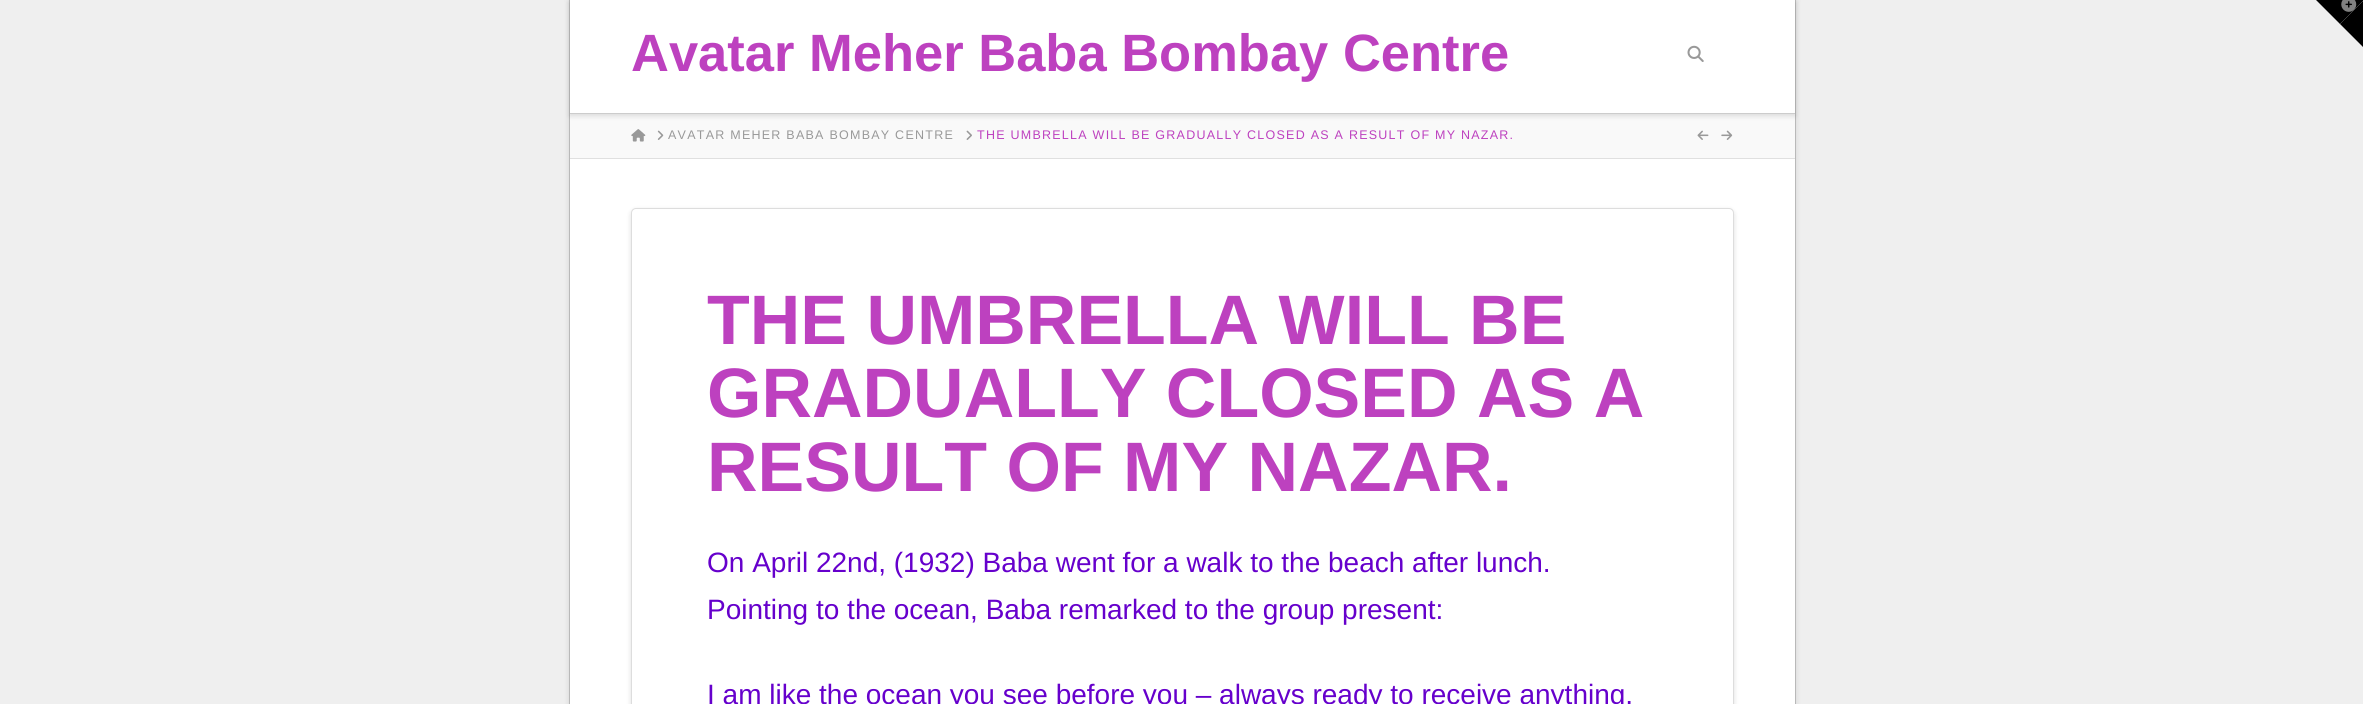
import math
import cairo

surface = cairo.ImageSurface(cairo.FORMAT_RGB24, 2363, 704)
ctx = cairo.Context(surface)
options = cairo.FontOptions()
options.set_hint_metrics(cairo.HINT_METRICS_OFF)
options.set_hint_style(cairo.HINT_STYLE_NONE)
ctx.set_font_options(options)
ctx.set_miter_limit(4)


def set_color(code):
    ctx.set_source_rgb(*(v / 255 for v in bytes.fromhex(code[-6:])))


def draw_text(x, y, s, family, size, color, bold=False, italic=False):
    ctx.select_font_face(family, cairo.FONT_SLANT_ITALIC if italic else cairo.FONT_SLANT_NORMAL, cairo.FONT_WEIGHT_BOLD if bold else cairo.FONT_WEIGHT_NORMAL)
    ctx.set_font_size(size)
    set_color(color)
    ctx.move_to(x, y)
    ctx.show_text(s)


def draw_spaced(x, y, s, letter, word):
    ctx.move_to(x, y)
    for ch in s:
        ctx.show_text(ch)
        ctx.rel_move_to(letter + word * (ch == ' '), 0)


def fill_rect(x, y, w, h, color):
    set_color(color)
    ctx.rectangle(x, y, w, h)
    ctx.fill()


def rounded_rect(x, y, w, h, r):
    ctx.new_sub_path()
    for i, (u, v) in enumerate([(x + w - r, y + h - r), (x + r, y + h - r), (x + r, y + r), (x + w - r, y + r)]):
        ctx.arc(u, v, r, i * math.pi / 2, (i + 1) * math.pi / 2)
    ctx.close_path()


def draw_shadow(x, y, w, h, r, blur, alpha):
    ctx.push_group_with_content(cairo.CONTENT_ALPHA)
    ctx.set_operator(cairo.OPERATOR_SOURCE)
    for i in range(15, -16, -2):
        e = blur * i / 6
        if min(w, h) + 2 * e > 0:
            ctx.set_source_rgba(0, 0, 0, alpha * math.erfc((i - 1) / 8.5) / 2)
            rounded_rect(x - e, y - e, w + 2 * e, h + 2 * e, max(0, min(r + e + blur * .6, min(w, h) / 2 + e)))
            ctx.fill()
    ctx.mask(ctx.pop_group())


def draw_image(path, x, y, w, h):
    ctx.save()
    ctx.set_source_surface(cairo.ImageSurface.create_from_png(path), x, y)
    ctx.rectangle(x, y, w, h)
    ctx.fill()
    ctx.restore()


set_color("#efefef")
ctx.paint()
set_color("#000000")
ctx.new_path()
ctx.move_to(2316, 0)
ctx.line_to(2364, 0)
ctx.line_to(2340, 24)
ctx.close_path()
ctx.fill()
ctx.new_path()
ctx.move_to(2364, 0)
ctx.line_to(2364, 48)
ctx.line_to(2340, 24)
ctx.close_path()
ctx.fill()
draw_image("assets/img1.png", 2341, 0, 16, 12)
set_color("#000000")
draw_shadow(569, 0, 1227, 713, 0, 3, 0.12)
fill_rect(570, 159, 1225, 545, "#ffffff")
fill_rect(1795, 0, 1, 704, "#b9b9b9")
fill_rect(569, 0, 1, 704, "#b9b9b9")
fill_rect(570, 114, 1225, 44, "#f9f9f9")
set_color("#000000")
draw_shadow(570, 3, 1225, 113, 0, 2.5, 0.13)
fill_rect(570, 0, 1225, 113, "#ffffff")
fill_rect(570, 113, 1225, 1, "#cccccc")
draw_text(631, 71, "Avatar Meher Baba Bombay Centre", "Liberation Sans", 52.5, "#bd41bf", bold=True)
draw_image("assets/img2.png", 1687, 45, 17, 17)
fill_rect(570, 158, 1225, 1, "#e0e0e0")
draw_image("assets/img3.png", 631, 129, 15, 13)
draw_image("assets/img4.png", 657, 130, 7, 10)
ctx.select_font_face("Liberation Sans")
ctx.set_font_size(12.5)
set_color("#999999")
draw_spaced(668, 139, "AVATAR MEHER BABA BOMBAY CENTRE", 1.25, 0)
draw_image("assets/img5.png", 966, 130, 6, 10)
set_color("#bd41bf")
draw_spaced(977, 139, "THE UMBRELLA WILL BE GRADUALLY CLOSED AS A RESULT OF MY NAZAR.", 1.25, 0)
draw_image("assets/img6.png", 1697, 130, 12, 10)
draw_image("assets/img7.png", 1721, 130, 12, 10)
set_color("#000000")
draw_shadow(631, 210, 1103, 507, 5, 2.5, 0.13)
set_color("#ffffff")
rounded_rect(631.5, 208.5, 1102, 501, 4.5)
ctx.fill_preserve()
set_color("#dddddd")
ctx.set_line_width(1)
ctx.stroke()
draw_text(707, 344, "THE UMBRELLA WILL BE", "Liberation Sans", 70, "#bd41bf", bold=True)
draw_text(707, 417, "GRADUALLY CLOSED AS A", "Liberation Sans", 70, "#bd41bf", bold=True)
draw_text(707, 491, "RESULT OF MY NAZAR.", "Liberation Sans", 70, "#bd41bf", bold=True)
draw_text(707, 572, "On April 22nd, (1932) Baba went for a walk to the beach after lunch.", "Liberation Sans", 28, "#6600cc")
draw_text(707, 619, "Pointing to the ocean, Baba remarked to the group present:", "Liberation Sans", 28, "#6600cc")
draw_text(707, 704, "I am like the ocean you see before you – always ready to receive anything,", "Liberation Sans", 28, "#6600cc")
surface.write_to_png("output.png")
